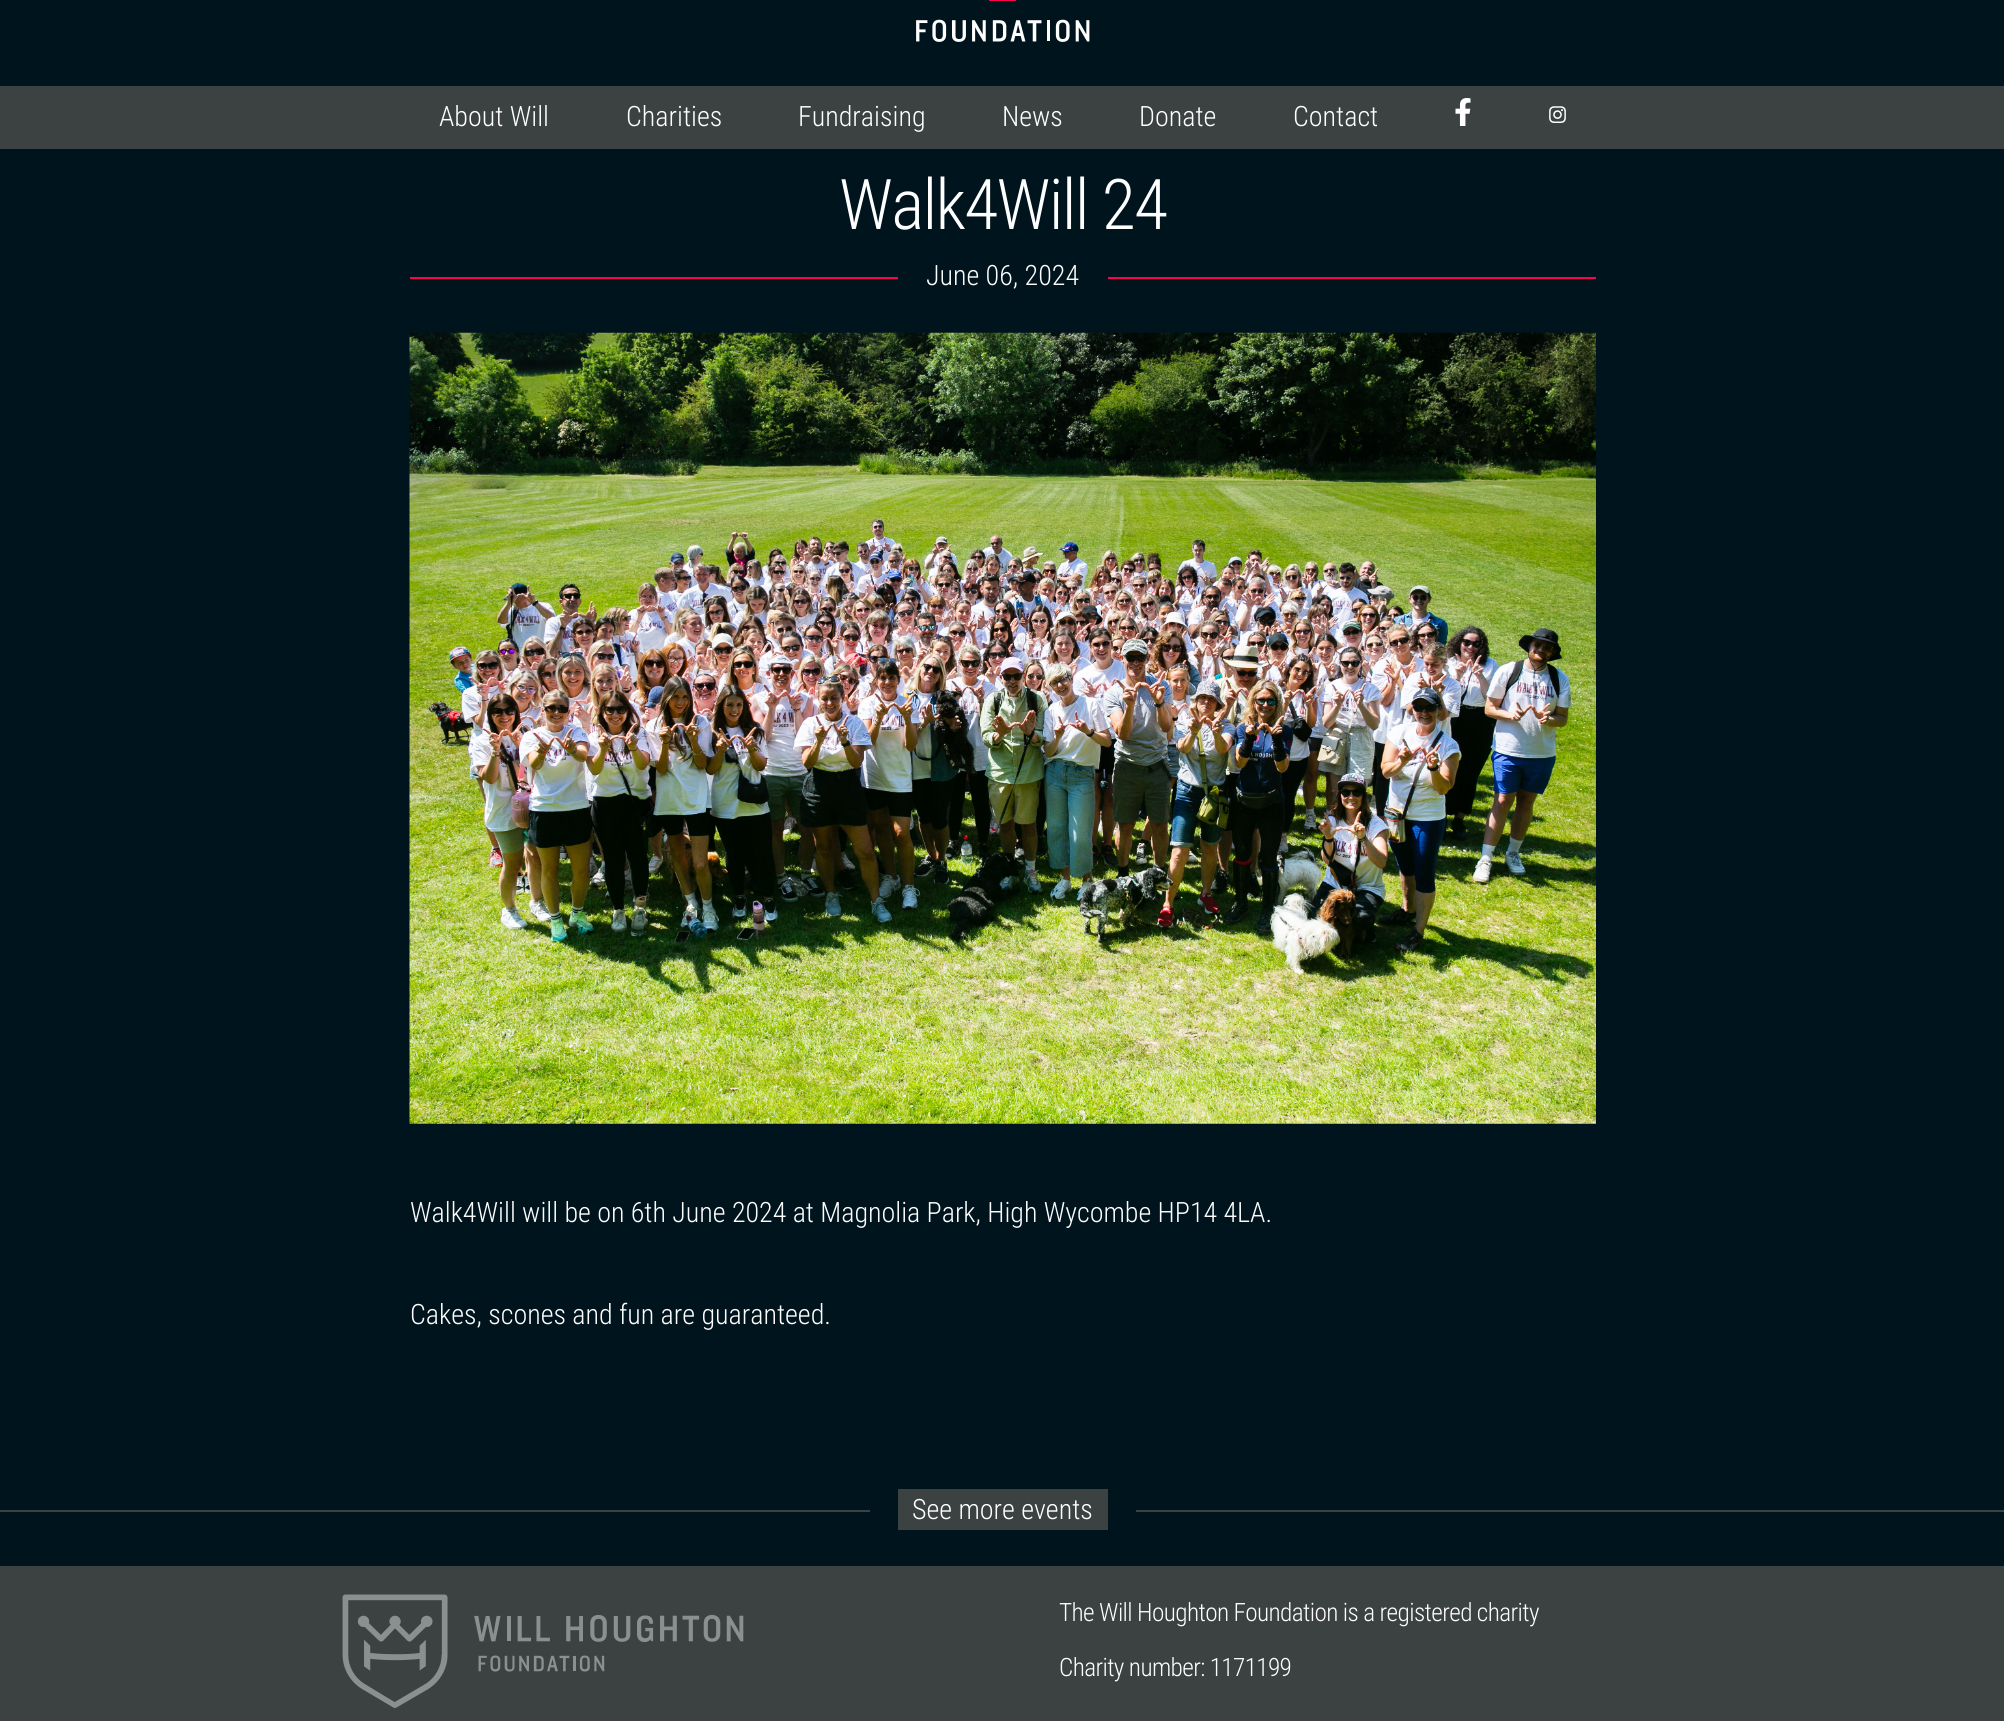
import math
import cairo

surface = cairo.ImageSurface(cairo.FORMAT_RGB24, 2004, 1721)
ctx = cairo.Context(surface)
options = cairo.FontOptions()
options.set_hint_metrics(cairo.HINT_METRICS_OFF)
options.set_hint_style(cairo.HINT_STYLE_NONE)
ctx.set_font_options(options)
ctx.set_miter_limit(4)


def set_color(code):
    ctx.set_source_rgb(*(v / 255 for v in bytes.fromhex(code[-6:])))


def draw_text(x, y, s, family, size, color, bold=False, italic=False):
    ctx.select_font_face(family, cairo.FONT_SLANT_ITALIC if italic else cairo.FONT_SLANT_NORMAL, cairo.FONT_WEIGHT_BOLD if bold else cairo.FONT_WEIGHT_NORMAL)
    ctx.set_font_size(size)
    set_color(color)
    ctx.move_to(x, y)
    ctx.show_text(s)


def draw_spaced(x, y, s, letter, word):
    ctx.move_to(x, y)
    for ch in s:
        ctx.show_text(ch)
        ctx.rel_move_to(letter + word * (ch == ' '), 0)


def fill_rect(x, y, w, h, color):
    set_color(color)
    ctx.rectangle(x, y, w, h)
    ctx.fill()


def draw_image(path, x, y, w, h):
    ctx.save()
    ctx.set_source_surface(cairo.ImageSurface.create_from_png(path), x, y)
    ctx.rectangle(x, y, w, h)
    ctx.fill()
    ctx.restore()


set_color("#00141e")
ctx.paint()
draw_image("assets/img1.png", 916, 0, 174, 42)
fill_rect(0, 86, 2004, 63, "#3c4141")
draw_text(439, 126, "About Will", "Roboto Condensed Light", 28, "#ffffff")
draw_text(626, 126, "Charities", "Roboto Condensed Light", 28, "#ffffff")
draw_text(798, 126, "Fundraising", "Roboto Condensed Light", 28, "#ffffff")
draw_text(1002, 126, "News", "Roboto Condensed Light", 28, "#ffffff")
draw_text(1139, 126, "Donate", "Roboto Condensed Light", 28, "#ffffff")
draw_text(1293, 126, "Contact", "Roboto Condensed Light", 28, "#ffffff")
draw_image("assets/img2.png", 1455, 98, 16, 28)
draw_image("assets/img3.png", 1549, 106, 17, 17)
ctx.set_font_size(70)
draw_spaced(839, 229, "Walk4Will 24", -1.75, 0)
fill_rect(410, 277, 488, 2, "#ff004f")
draw_text(926, 285, "June 06, 2024", "Roboto Condensed Light", 28, "#ffffff")
fill_rect(1108, 277, 488, 2, "#ff004f")
draw_image("assets/img4.png", 409, 332, 1187, 792)
draw_text(410, 1222, "Walk4Will will be on 6th June 2024 at Magnolia Park, High Wycombe HP14 4LA.", "Roboto Condensed Light", 28, "#ffffff")
draw_text(410, 1324, "Cakes, scones and fun are guaranteed.", "Roboto Condensed Light", 28, "#ffffff")
fill_rect(0, 1510, 870, 2, "#3c4141")
fill_rect(898, 1489, 210, 41, "#3c4141")
draw_text(912, 1519, "See more events", "Roboto Condensed Light", 28, "#ffffff")
fill_rect(1136, 1510, 868, 2, "#3c4141")
fill_rect(0, 1566, 2004, 155, "#3c4141")
draw_image("assets/img5.png", 342, 1594, 402, 114)
ctx.set_font_size(25.25)
set_color("#ffffff")
draw_spaced(1059, 1621, "The Will Houghton Foundation is a registered charity", -0.63, 0)
draw_spaced(1059, 1676, "Charity number: 1171199", -0.63, 0)
surface.write_to_png("output.png")
